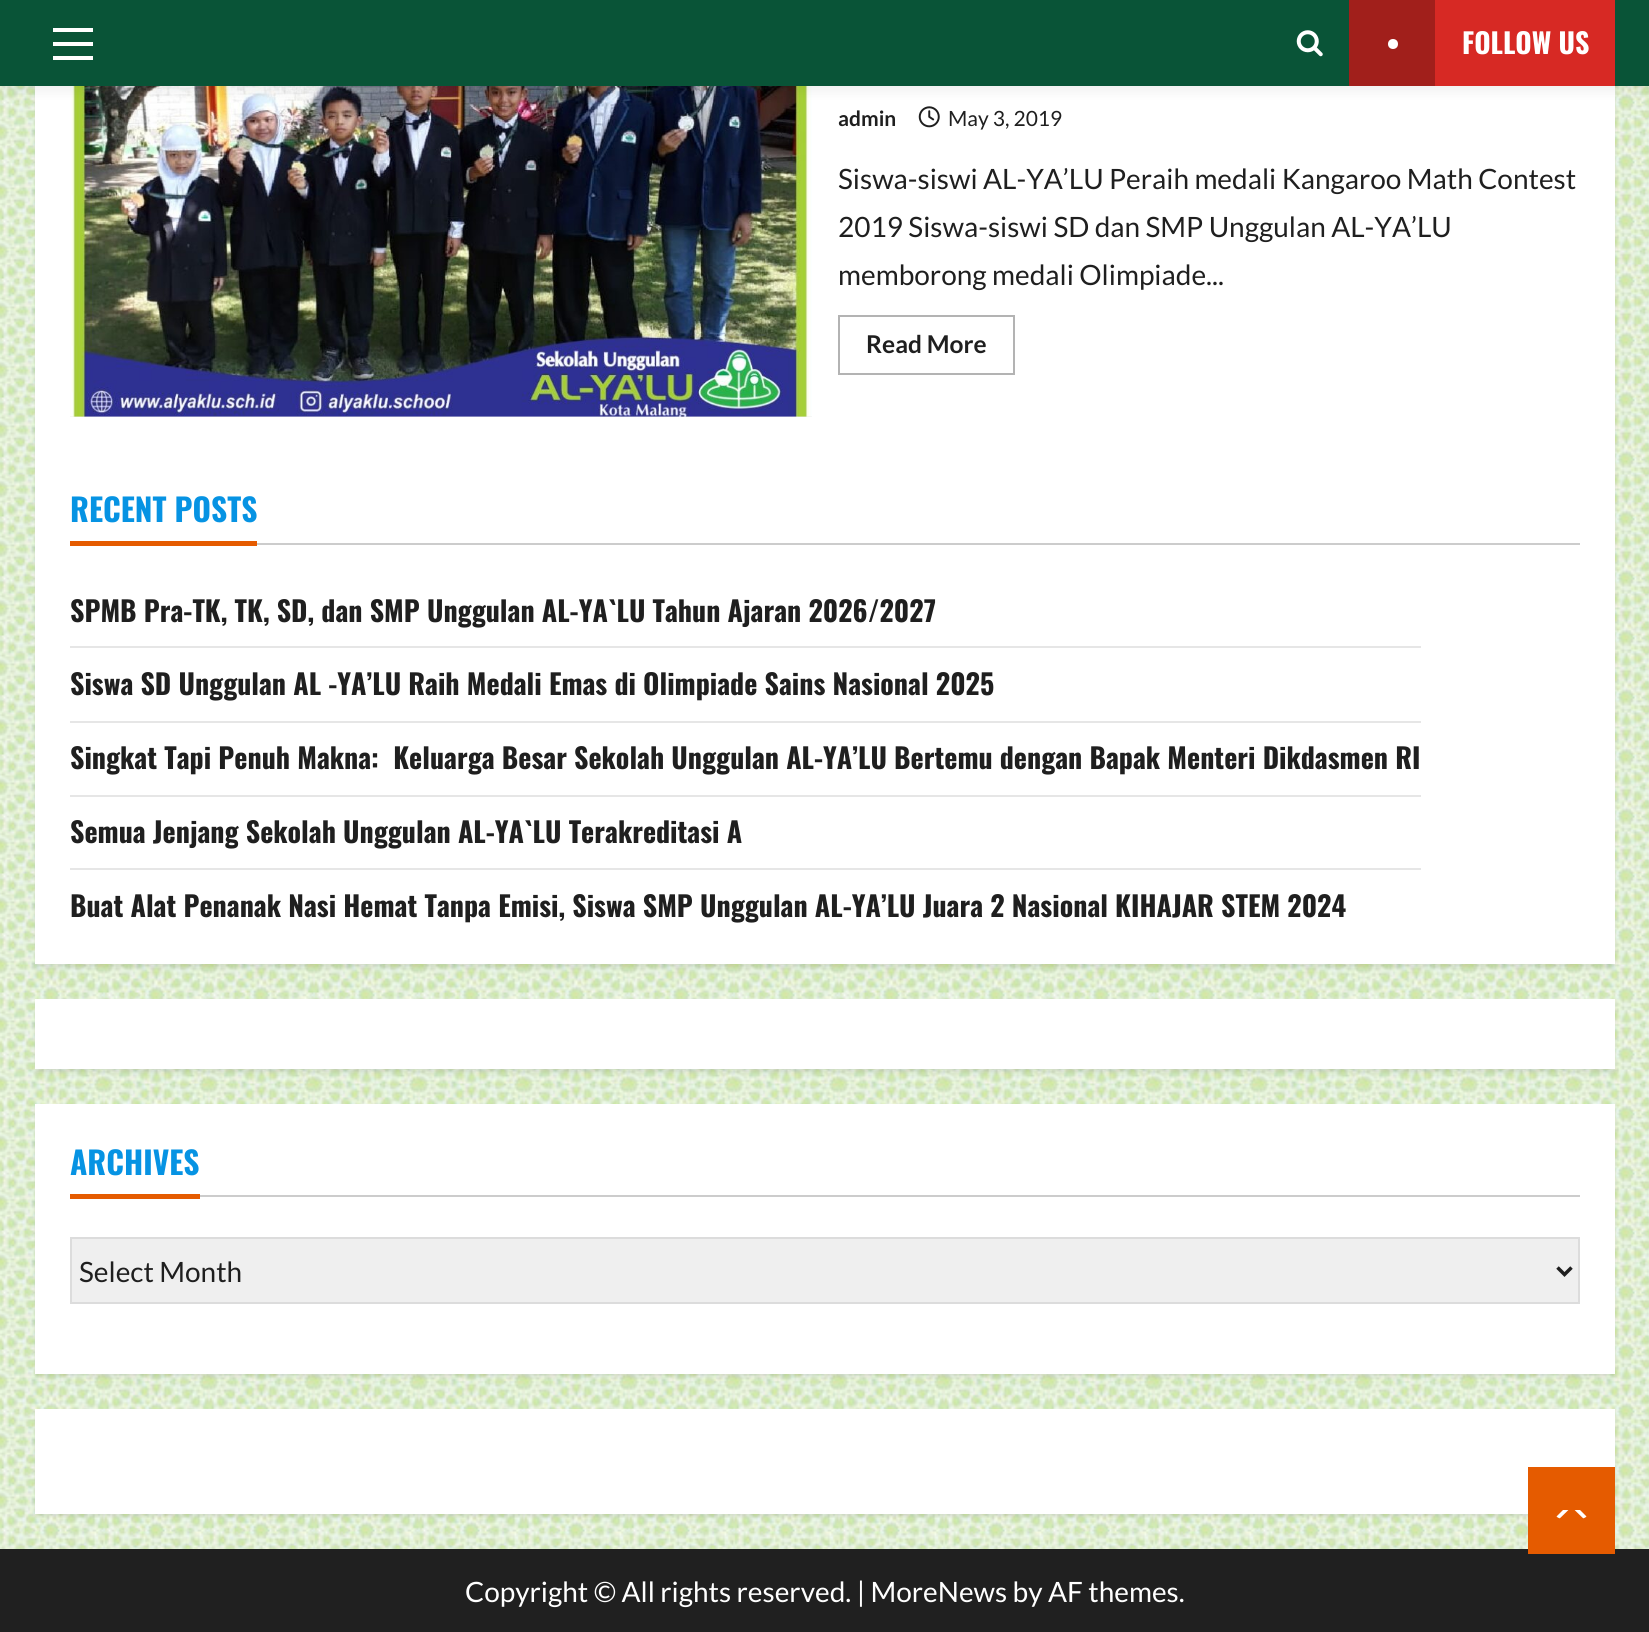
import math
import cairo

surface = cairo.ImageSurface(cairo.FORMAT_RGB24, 1649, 1632)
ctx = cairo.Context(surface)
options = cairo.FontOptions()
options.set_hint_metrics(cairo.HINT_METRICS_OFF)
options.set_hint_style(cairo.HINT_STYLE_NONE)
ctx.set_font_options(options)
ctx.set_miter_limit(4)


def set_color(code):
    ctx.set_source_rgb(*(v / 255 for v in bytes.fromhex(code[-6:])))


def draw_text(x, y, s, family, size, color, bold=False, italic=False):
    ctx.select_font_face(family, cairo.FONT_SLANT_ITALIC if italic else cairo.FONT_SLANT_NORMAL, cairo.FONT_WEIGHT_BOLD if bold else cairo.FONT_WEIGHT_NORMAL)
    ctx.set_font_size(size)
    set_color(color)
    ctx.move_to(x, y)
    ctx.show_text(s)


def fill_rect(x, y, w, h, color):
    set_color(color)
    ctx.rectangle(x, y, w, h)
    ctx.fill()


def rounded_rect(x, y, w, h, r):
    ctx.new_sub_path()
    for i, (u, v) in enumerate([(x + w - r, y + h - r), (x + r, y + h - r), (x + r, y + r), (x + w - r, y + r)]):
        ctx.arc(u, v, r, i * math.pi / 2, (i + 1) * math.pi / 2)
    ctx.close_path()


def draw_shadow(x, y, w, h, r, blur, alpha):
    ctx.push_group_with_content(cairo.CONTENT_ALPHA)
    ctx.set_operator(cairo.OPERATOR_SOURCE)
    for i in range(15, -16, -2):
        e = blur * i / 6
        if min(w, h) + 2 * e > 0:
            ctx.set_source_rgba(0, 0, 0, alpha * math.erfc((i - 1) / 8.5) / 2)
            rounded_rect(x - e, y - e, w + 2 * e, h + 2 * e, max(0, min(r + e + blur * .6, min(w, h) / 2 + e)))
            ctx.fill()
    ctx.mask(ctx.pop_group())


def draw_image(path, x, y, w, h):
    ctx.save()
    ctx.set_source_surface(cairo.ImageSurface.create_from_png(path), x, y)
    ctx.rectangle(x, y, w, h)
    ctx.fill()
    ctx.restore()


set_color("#ffffff")
ctx.paint()
draw_image("assets/img1.png", 0, 86, 1649, 1463)
set_color("#000000")
draw_shadow(35, -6, 1580, 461, 0, 2, 0.08)
fill_rect(35, 86, 1580, 366, "#ffffff")
fill_rect(70, 416, 742, 1, "#ececec")
draw_image("assets/img3.png", 70, 86, 742, 331)
draw_image("assets/img4.png", 918, 106, 22, 22)
set_color("#000000")
draw_shadow(0, 4, 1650, 85, 0, 7, 0.08)
fill_rect(0, 0, 1649, 86, "#095437")
fill_rect(53, 42, 40, 4, "#ffffff")
fill_rect(53, 28, 40, 4, "#ffffff")
fill_rect(53, 56, 40, 4, "#ffffff")
draw_image("assets/img2.png", 1296, 30, 27, 27)
fill_rect(1435, 0, 180, 86, "#d72924")
fill_rect(1349, 0, 86, 86, "#a11f1b")
set_color("#ffffff")
ctx.arc(1393, 44, 5, 0, 2 * math.pi)
ctx.fill()
draw_text(1462, 54, "FOLLOW US", "Oswald", 28, "#ffffff", bold=True)
draw_text(838, 126, "admin", "Lato", 21, "#1f1f1f", bold=True)
draw_text(948, 126, "May 3, 2019", "Lato", 21, "#1f1f1f")
draw_text(838, 189, "Siswa-siswi AL-YA’LU Peraih medali Kangaroo Math Contest", "Lato", 28, "#1f1f1f")
draw_text(838, 237, "2019 Siswa-siswi SD dan SMP Unggulan AL-YA’LU", "Lato", 28, "#1f1f1f")
draw_text(838, 285, "memborong medali Olimpiade...", "Lato", 28, "#1f1f1f")
ctx.rectangle(839, 316, 175, 58)
set_color("#b3b3b3")
ctx.stroke()
draw_text(866, 353, "Read More", "Lato", 24.5, "#1f1f1f", bold=True)
set_color("#000000")
draw_shadow(35, 455, 1580, 513, 0, 2, 0.08)
fill_rect(35, 452, 1580, 512, "#ffffff")
draw_text(70, 522, "RECENT POSTS", "Oswald", 31.5, "#0693e3", bold=True)
fill_rect(70, 541, 187, 5, "#e55b00")
fill_rect(257, 543, 1323, 2, "#cccccc")
fill_rect(70, 646, 1351, 2, "#e6e6e6")
draw_text(70, 622, "SPMB Pra-TK, TK, SD, dan SMP Unggulan AL-YA`LU Tahun Ajaran 2026/2027", "Oswald", 28, "#1f1f1f", bold=True)
fill_rect(70, 721, 1351, 2, "#e6e6e6")
draw_text(70, 695, "Siswa SD Unggulan AL -YA’LU Raih Medali Emas di Olimpiade Sains Nasional 2025", "Oswald", 28, "#1f1f1f", bold=True)
fill_rect(70, 795, 1351, 2, "#e6e6e6")
draw_text(70, 769, "Singkat Tapi Penuh Makna:  Keluarga Besar Sekolah Unggulan AL-YA’LU Bertemu dengan Bapak Menteri Dikdasmen RI", "Oswald", 28, "#1f1f1f", bold=True)
fill_rect(70, 868, 1351, 2, "#e6e6e6")
draw_text(70, 843, "Semua Jenjang Sekolah Unggulan AL-YA`LU Terakreditasi A", "Oswald", 28, "#1f1f1f", bold=True)
draw_text(70, 917, "Buat Alat Penanak Nasi Hemat Tanpa Emisi, Siswa SMP Unggulan AL-YA’LU Juara 2 Nasional KIHAJAR STEM 2024", "Oswald", 28, "#1f1f1f", bold=True)
set_color("#000000")
draw_shadow(35, 1003, 1580, 70, 0, 2, 0.08)
fill_rect(35, 999, 1580, 70, "#ffffff")
set_color("#000000")
draw_shadow(35, 1108, 1580, 269, 0, 2, 0.08)
fill_rect(35, 1104, 1580, 270, "#ffffff")
draw_text(70, 1175, "ARCHIVES", "Oswald", 31.5, "#0693e3", bold=True)
fill_rect(70, 1194, 130, 5, "#e55b00")
fill_rect(200, 1195, 1380, 2, "#cccccc")
set_color("#efefef")
ctx.rectangle(71, 1238, 1508, 65)
ctx.fill_preserve()
set_color("#dcdcdc")
ctx.stroke()
ctx.new_path()
ctx.move_to(1557.5, 1267.5)
ctx.line_to(1564.5, 1274.5)
ctx.line_to(1571.5, 1267.5)
set_color("#1f1f1f")
ctx.set_line_width(3.5)
ctx.stroke()
draw_text(79, 1282, "Select Month", "Lato", 28, "#1f1f1f")
set_color("#000000")
draw_shadow(35, 1412, 1580, 105, 0, 2, 0.08)
fill_rect(35, 1409, 1580, 105, "#ffffff")
fill_rect(0, 1549, 1649, 83, "#202020")
draw_text(465, 1602, "Copyright © All rights reserved. | MoreNews by AF themes.", "Lato", 28, "#ffffff")
fill_rect(1528, 1467, 87, 87, "#e55b00")
set_color("#ffffff")
ctx.new_path()
ctx.move_to(1563, 1519)
ctx.line_to(1580, 1519)
ctx.curve_to(1582.5, 1519, 1585, 1518, 1586.5, 1516.5)
ctx.line_to(1580, 1510)
ctx.line_to(1563, 1510)
ctx.line_to(1556.5, 1516.5)
ctx.curve_to(1558, 1518, 1560.5, 1519, 1563, 1519)
ctx.close_path()
ctx.fill()
set_color("#e55b00")
ctx.new_path()
ctx.move_to(1589, 1524)
ctx.line_to(1554, 1524)
ctx.line_to(1571.5, 1507)
ctx.close_path()
ctx.fill()
surface.write_to_png("output.png")
